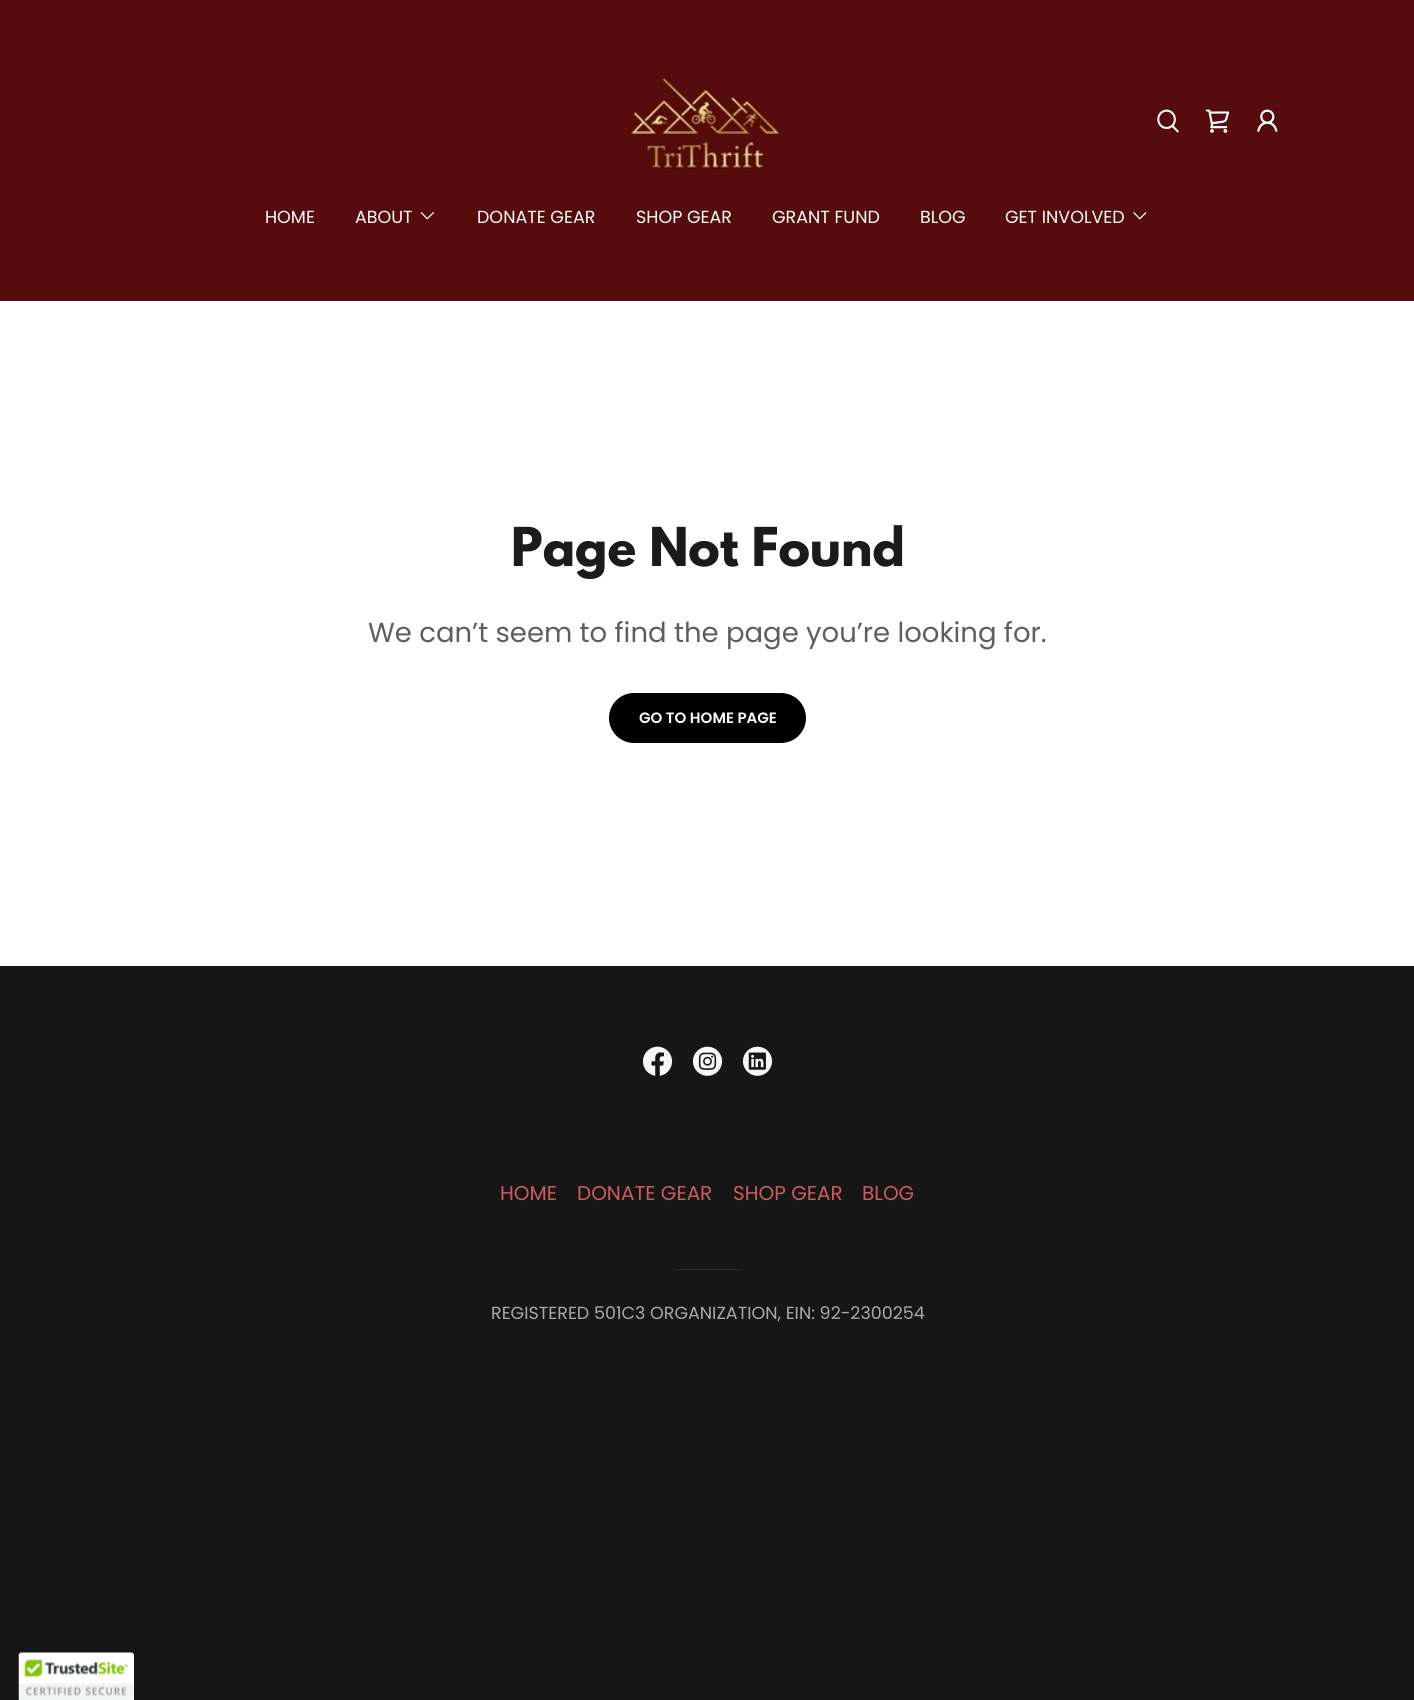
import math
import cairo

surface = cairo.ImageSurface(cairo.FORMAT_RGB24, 1414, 1700)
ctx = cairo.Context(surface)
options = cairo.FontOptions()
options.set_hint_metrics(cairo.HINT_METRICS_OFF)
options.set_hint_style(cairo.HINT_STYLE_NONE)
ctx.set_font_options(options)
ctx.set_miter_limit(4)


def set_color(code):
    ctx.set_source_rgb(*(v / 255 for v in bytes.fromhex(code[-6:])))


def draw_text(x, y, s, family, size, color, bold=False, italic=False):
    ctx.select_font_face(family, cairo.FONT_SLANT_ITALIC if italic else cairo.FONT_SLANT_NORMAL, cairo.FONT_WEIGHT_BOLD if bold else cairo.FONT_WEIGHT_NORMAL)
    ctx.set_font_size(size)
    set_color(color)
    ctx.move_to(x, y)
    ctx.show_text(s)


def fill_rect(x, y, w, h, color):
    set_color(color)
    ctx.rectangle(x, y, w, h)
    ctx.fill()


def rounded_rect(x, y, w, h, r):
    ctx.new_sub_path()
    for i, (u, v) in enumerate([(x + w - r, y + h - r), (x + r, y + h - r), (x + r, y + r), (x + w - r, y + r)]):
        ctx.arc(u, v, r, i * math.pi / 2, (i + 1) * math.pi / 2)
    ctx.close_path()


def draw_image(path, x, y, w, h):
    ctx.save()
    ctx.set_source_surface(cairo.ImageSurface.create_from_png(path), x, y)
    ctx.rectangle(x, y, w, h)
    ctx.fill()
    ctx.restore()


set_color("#161616")
ctx.paint()
fill_rect(0, 0, 1414, 301, "#560b0c")
draw_image("assets/img1.png", 630, 77, 150, 93)
draw_image("assets/img2.png", 1157, 109, 22, 24)
draw_image("assets/img3.png", 1205, 109, 25, 24)
draw_image("assets/img4.png", 1257, 109, 21, 23)
draw_text(265, 223, "HOME", "Poppins", 17.5, "#ffffff")
draw_text(355, 223, "ABOUT", "Poppins", 17.5, "#ffffff")
draw_image("assets/img5.png", 420, 212, 14, 8)
draw_text(477, 223, "DONATE GEAR", "Poppins", 17.5, "#ffffff")
draw_text(636, 223, "SHOP GEAR", "Poppins", 17.5, "#ffffff")
draw_text(772, 223, "GRANT FUND", "Poppins", 17.5, "#ffffff")
draw_text(920, 223, "BLOG", "Poppins", 17.5, "#ffffff")
draw_text(1005, 223, "GET INVOLVED", "Poppins", 17.5, "#ffffff")
draw_image("assets/img6.png", 1133, 212, 14, 8)
fill_rect(0, 301, 1414, 665, "#ffffff")
draw_text(511, 566, "Page Not Found", "League Spartan", 47.5, "#1b1b1b", bold=True)
draw_text(368, 642, "We can’t seem to find the page you’re looking for.", "Poppins", 27.5, "#5e5e5e")
set_color("#000000")
rounded_rect(609, 693, 197, 50, 25)
ctx.fill()
draw_text(639, 723, "GO TO HOME PAGE", "Poppins SemiBold", 15, "#ffffff")
draw_image("assets/img7.png", 642, 1046, 31, 30)
draw_image("assets/img8.png", 692, 1046, 31, 30)
draw_image("assets/img9.png", 742, 1046, 31, 30)
draw_text(500, 1200, "HOME", "Poppins", 20, "#cc5c5d")
draw_text(577, 1200, "DONATE GEAR", "Poppins", 20, "#cc5c5d")
draw_text(733, 1200, "SHOP GEAR", "Poppins", 20, "#cc5c5d")
draw_text(862, 1200, "BLOG", "Poppins", 20, "#cc5c5d")
fill_rect(676, 1269, 63, 1, "#2a2a2a")
draw_text(491, 1319, "REGISTERED 501C3 ORGANIZATION, EIN: 92-2300254", "Poppins", 17.5, "#a9a9a9")
set_color("#ffffff")
ctx.new_path()
ctx.move_to(21.5, 1653)
ctx.line_to(131.5, 1653)
ctx.curve_to(133, 1653, 134, 1654, 134, 1655.5)
ctx.line_to(134, 1700)
ctx.line_to(19, 1700)
ctx.line_to(19, 1655.5)
ctx.curve_to(19, 1654, 20, 1653, 21.5, 1653)
ctx.close_path()
ctx.fill()
draw_image("assets/img10.png", 18, 1652, 116, 48)
surface.write_to_png("output.png")
